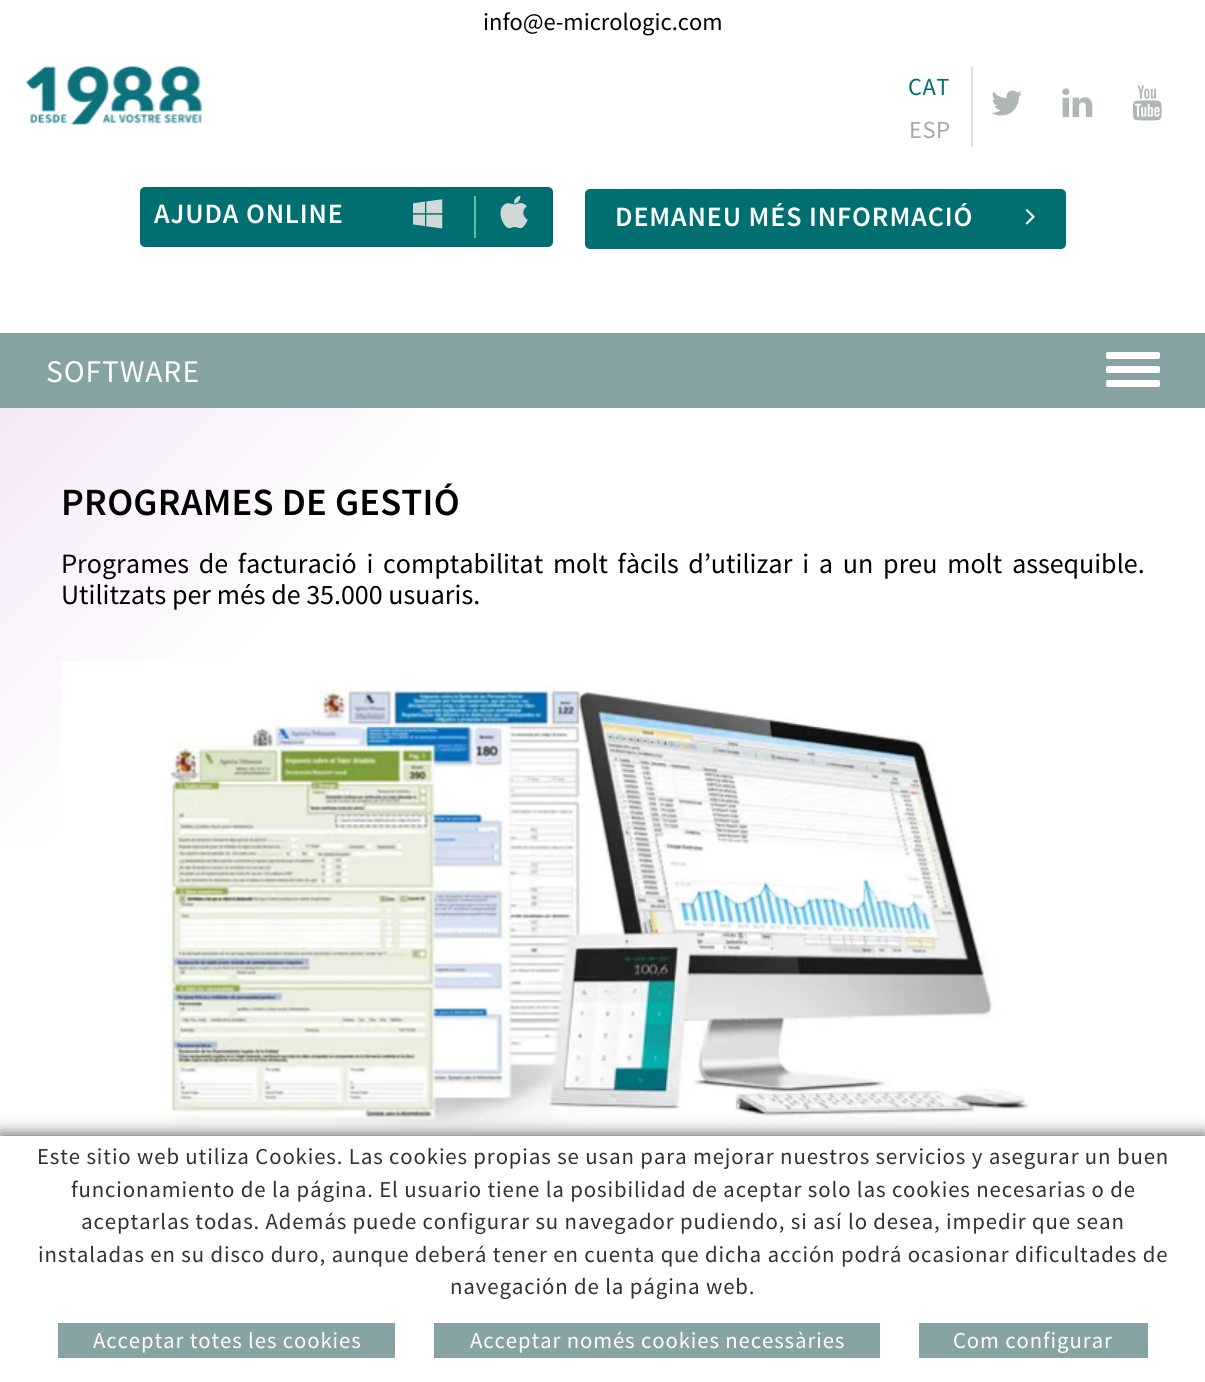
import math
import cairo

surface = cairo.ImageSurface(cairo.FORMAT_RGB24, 1205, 1382)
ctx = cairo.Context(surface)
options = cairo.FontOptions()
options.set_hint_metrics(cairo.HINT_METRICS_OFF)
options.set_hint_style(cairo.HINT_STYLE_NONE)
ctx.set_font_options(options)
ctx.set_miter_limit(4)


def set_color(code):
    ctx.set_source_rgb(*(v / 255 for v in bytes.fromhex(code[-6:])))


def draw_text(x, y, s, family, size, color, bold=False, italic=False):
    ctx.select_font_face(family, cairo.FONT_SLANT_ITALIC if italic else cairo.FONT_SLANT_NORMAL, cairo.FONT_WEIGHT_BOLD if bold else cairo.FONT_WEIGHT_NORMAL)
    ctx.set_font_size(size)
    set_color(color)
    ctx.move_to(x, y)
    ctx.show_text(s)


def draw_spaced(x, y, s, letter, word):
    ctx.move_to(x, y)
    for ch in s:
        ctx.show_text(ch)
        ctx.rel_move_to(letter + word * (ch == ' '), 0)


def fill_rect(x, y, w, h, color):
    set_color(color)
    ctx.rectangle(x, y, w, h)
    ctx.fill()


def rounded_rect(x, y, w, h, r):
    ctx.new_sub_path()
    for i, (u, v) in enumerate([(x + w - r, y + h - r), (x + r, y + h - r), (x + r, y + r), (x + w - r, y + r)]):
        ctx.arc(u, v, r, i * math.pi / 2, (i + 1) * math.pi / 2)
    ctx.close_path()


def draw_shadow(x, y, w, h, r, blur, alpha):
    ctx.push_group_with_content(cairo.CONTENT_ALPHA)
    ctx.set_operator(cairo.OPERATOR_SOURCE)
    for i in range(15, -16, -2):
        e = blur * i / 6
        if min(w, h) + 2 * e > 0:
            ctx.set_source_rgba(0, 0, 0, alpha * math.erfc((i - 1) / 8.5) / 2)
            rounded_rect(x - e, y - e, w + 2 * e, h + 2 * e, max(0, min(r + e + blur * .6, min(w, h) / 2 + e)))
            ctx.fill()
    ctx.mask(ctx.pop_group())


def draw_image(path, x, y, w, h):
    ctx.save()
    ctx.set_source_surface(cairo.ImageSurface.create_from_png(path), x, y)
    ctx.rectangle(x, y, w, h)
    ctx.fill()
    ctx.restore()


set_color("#ffffff")
ctx.paint()
draw_text(483, 30, "info@e-micrologic.com", "Source Sans Pro", 24.5, "#000000")
draw_image("assets/img1.png", 26, 66, 176, 59)
fill_rect(971, 67, 2, 80, "#e0e0e0")
set_color("#006f72")
draw_spaced(908, 95, "CAT", 0.5, 0)
set_color("#a7a7a7")
draw_spaced(909, 138, "ESP", 0.5, 0)
draw_image("assets/img2.png", 991, 90, 31, 26)
draw_image("assets/img3.png", 1062, 88, 31, 30)
draw_image("assets/img4.png", 1132, 85, 30, 36)
set_color("#006f72")
rounded_rect(140, 187, 413, 60, 5)
ctx.fill()
ctx.select_font_face("Source Sans Pro SemiBold")
ctx.set_font_size(28)
set_color("#ffffff")
draw_spaced(154, 223, "AJUDA ONLINE", 0.88, 0)
draw_image("assets/img5.png", 413, 199, 30, 30)
fill_rect(474, 196, 2, 42, "#56c49c")
draw_image("assets/img6.png", 500, 195, 28, 34)
set_color("#006f72")
rounded_rect(585, 189, 481, 60, 5)
ctx.fill()
set_color("#ffffff")
draw_spaced(615, 226, "DEMANEU MÉS INFORMACIÓ", 0.88, 0)
draw_image("assets/img7.png", 1025, 209, 10, 16)
fill_rect(0, 333, 1205, 75, "#87a3a4")
ctx.select_font_face("Source Sans Pro")
ctx.set_font_size(31.5)
set_color("#ffffff")
draw_spaced(46, 382, "SOFTWARE", 0.88, 0)
rounded_rect(1106, 352, 54, 7, 2)
ctx.fill()
rounded_rect(1106, 366, 54, 7, 2)
ctx.fill()
rounded_rect(1106, 380, 54, 7, 2)
ctx.fill()
gradient = cairo.LinearGradient(86, 320, 1120, 1353)
gradient.add_color_stop_rgba(0, 0.957, 0.91, 0.973, 1)
gradient.add_color_stop_rgba(0.24, 1, 1, 1, 1)
ctx.set_source(gradient)
ctx.rectangle(0, 408, 440, 440)
ctx.fill()
ctx.select_font_face("Source Sans Pro SemiBold")
ctx.set_font_size(38.5)
set_color("#000000")
draw_spaced(61, 515, "PROGRAMES DE GESTIÓ", 0.2, 0)
ctx.select_font_face("Source Sans Pro")
ctx.set_font_size(28)
draw_spaced(61, 573, "Programes de facturació i comptabilitat molt fàcils d’utilizar i a un preu molt assequible.", 0, 4.1)
draw_text(61, 604, "Utilitzats per més de 35.000 usuaris.", "Source Sans Pro", 28, "#000000")
draw_image("assets/img8.png", 61, 661, 969, 469)
set_color("#444444")
draw_shadow(0, 1136, 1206, 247, 0, 9, 1)
fill_rect(0, 1136, 1205, 246, "#ffffff")
ctx.set_font_size(22.75)
set_color("#313131")
draw_spaced(37, 1164, "Este sitio web utiliza Cookies. Las cookies propias se usan para mejorar nuestros servicios y asegurar un buen", 0.88, 0)
draw_spaced(71, 1197, "funcionamiento de la página. El usuario tiene la posibilidad de aceptar solo las cookies necesarias o de", 0.88, 0)
draw_spaced(81, 1229, "aceptarlas todas. Además puede configurar su navegador pudiendo, si así lo desea, impedir que sean", 0.88, 0)
draw_spaced(38, 1262, "instaladas en su disco duro, aunque deberá tener en cuenta que dicha acción podrá ocasionar dificultades de", 0.88, 0)
draw_spaced(450, 1294, "navegación de la página web.", 0.88, 0)
fill_rect(58, 1323, 337, 35, "#87a3a4")
set_color("#ffffff")
draw_spaced(93, 1348, "Acceptar totes les cookies", 0.88, 0)
fill_rect(434, 1323, 446, 35, "#87a3a4")
set_color("#ffffff")
draw_spaced(470, 1348, "Acceptar només cookies necessàries", 0.88, 0)
fill_rect(919, 1323, 229, 35, "#87a3a4")
set_color("#ffffff")
draw_spaced(953, 1348, "Com configurar", 0.88, 0)
surface.write_to_png("output.png")
